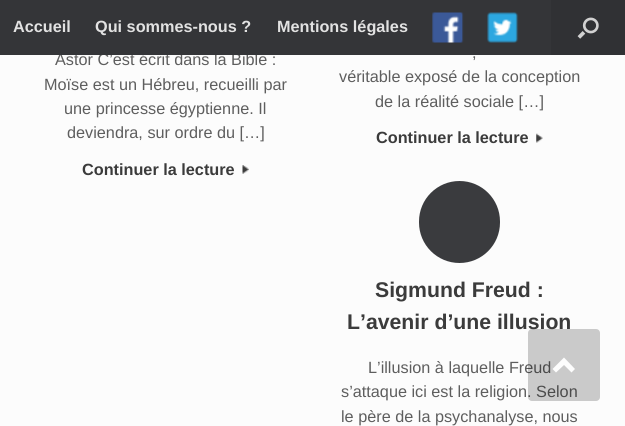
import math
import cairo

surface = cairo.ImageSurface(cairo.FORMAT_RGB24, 625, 426)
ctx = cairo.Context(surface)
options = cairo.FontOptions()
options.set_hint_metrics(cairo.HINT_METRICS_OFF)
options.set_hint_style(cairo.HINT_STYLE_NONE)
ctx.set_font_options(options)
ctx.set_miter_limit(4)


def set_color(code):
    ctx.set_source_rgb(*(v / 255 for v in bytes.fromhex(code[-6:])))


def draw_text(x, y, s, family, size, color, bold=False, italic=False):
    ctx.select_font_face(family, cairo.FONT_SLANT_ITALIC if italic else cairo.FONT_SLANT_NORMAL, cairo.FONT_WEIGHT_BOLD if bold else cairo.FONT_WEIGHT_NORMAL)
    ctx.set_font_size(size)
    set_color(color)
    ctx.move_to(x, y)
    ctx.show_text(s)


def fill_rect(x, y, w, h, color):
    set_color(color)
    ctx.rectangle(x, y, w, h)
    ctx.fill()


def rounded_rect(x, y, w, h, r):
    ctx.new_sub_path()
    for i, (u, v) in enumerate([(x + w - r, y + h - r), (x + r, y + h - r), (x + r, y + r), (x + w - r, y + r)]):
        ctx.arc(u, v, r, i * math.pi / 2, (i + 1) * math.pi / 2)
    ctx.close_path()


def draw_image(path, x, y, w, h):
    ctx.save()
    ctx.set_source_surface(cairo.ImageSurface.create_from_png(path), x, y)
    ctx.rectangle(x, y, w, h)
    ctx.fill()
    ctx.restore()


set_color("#fcfcfc")
ctx.paint()
draw_text(55, 65, "Astor C’est écrit dans la Bible :", "Liberation Sans", 16.25, "#5e5e5e")
fill_rect(0, 0, 551, 55, "#343538")
draw_text(13, 32, "Accueil", "Liberation Sans", 16.25, "#e2e2e2", bold=True)
draw_text(95, 32, "Qui sommes-nous ?", "Liberation Sans", 16.25, "#e2e2e2", bold=True)
draw_text(277, 32, "Mentions légales", "Liberation Sans", 16.25, "#e2e2e2", bold=True)
draw_image("assets/img1.png", 432, 12, 32, 31)
draw_image("assets/img2.png", 487, 12, 32, 31)
fill_rect(551, 0, 74, 55, "#303134")
draw_image("assets/img3.png", 577, 17, 22, 22)
draw_text(44, 90, "Moïse est un Hébreu, recueilli par", "Liberation Sans", 16.25, "#5e5e5e")
draw_text(64, 114, "une princesse égyptienne. Il", "Liberation Sans", 16.25, "#5e5e5e")
draw_text(67, 138, "deviendra, sur ordre du […]", "Liberation Sans", 16.25, "#5e5e5e")
draw_text(82, 175, "Continuer la lecture", "Liberation Sans", 16.25, "#3b3b3b", bold=True)
draw_image("assets/img4.png", 242, 165, 7, 9)
draw_text(472, 58, ",", "Liberation Sans", 16.25, "#5e5e5e")
draw_text(339, 82, "véritable exposé de la conception", "Liberation Sans", 16.25, "#5e5e5e")
draw_text(375, 107, "de la réalité sociale […]", "Liberation Sans", 16.25, "#5e5e5e")
draw_text(376, 143, "Continuer la lecture", "Liberation Sans", 16.25, "#3b3b3b", bold=True)
draw_image("assets/img5.png", 536, 133, 7, 10)
set_color("#3a3b3e")
rounded_rect(419, 181, 81, 82, 40.5)
ctx.fill()
draw_text(375, 297, "Sigmund Freud :", "Liberation Sans", 21.25, "#3b3b3b", bold=True)
draw_text(347, 329, "L’avenir d’une illusion", "Liberation Sans", 21.25, "#3b3b3b", bold=True)
draw_text(368, 373, "L’illusion à laquelle Freud", "Liberation Sans", 16.25, "#5e5e5e")
draw_text(341, 397, "s’attaque ici est la religion. Selon", "Liberation Sans", 16.25, "#5e5e5e")
draw_text(341, 422, "le père de la psychanalyse, nous", "Liberation Sans", 16.25, "#5e5e5e")
ctx.set_source_rgba(0, 0, 0, 0.2)
rounded_rect(528, 329, 72, 72, 4)
ctx.fill()
set_color("#fdfdfd")
ctx.new_path()
ctx.move_to(575, 369)
ctx.line_to(564, 357.5)
ctx.line_to(552.5, 369)
ctx.line_to(556, 372.5)
ctx.line_to(564, 365)
ctx.line_to(571.5, 372.5)
ctx.close_path()
ctx.fill()
surface.write_to_png("output.png")
